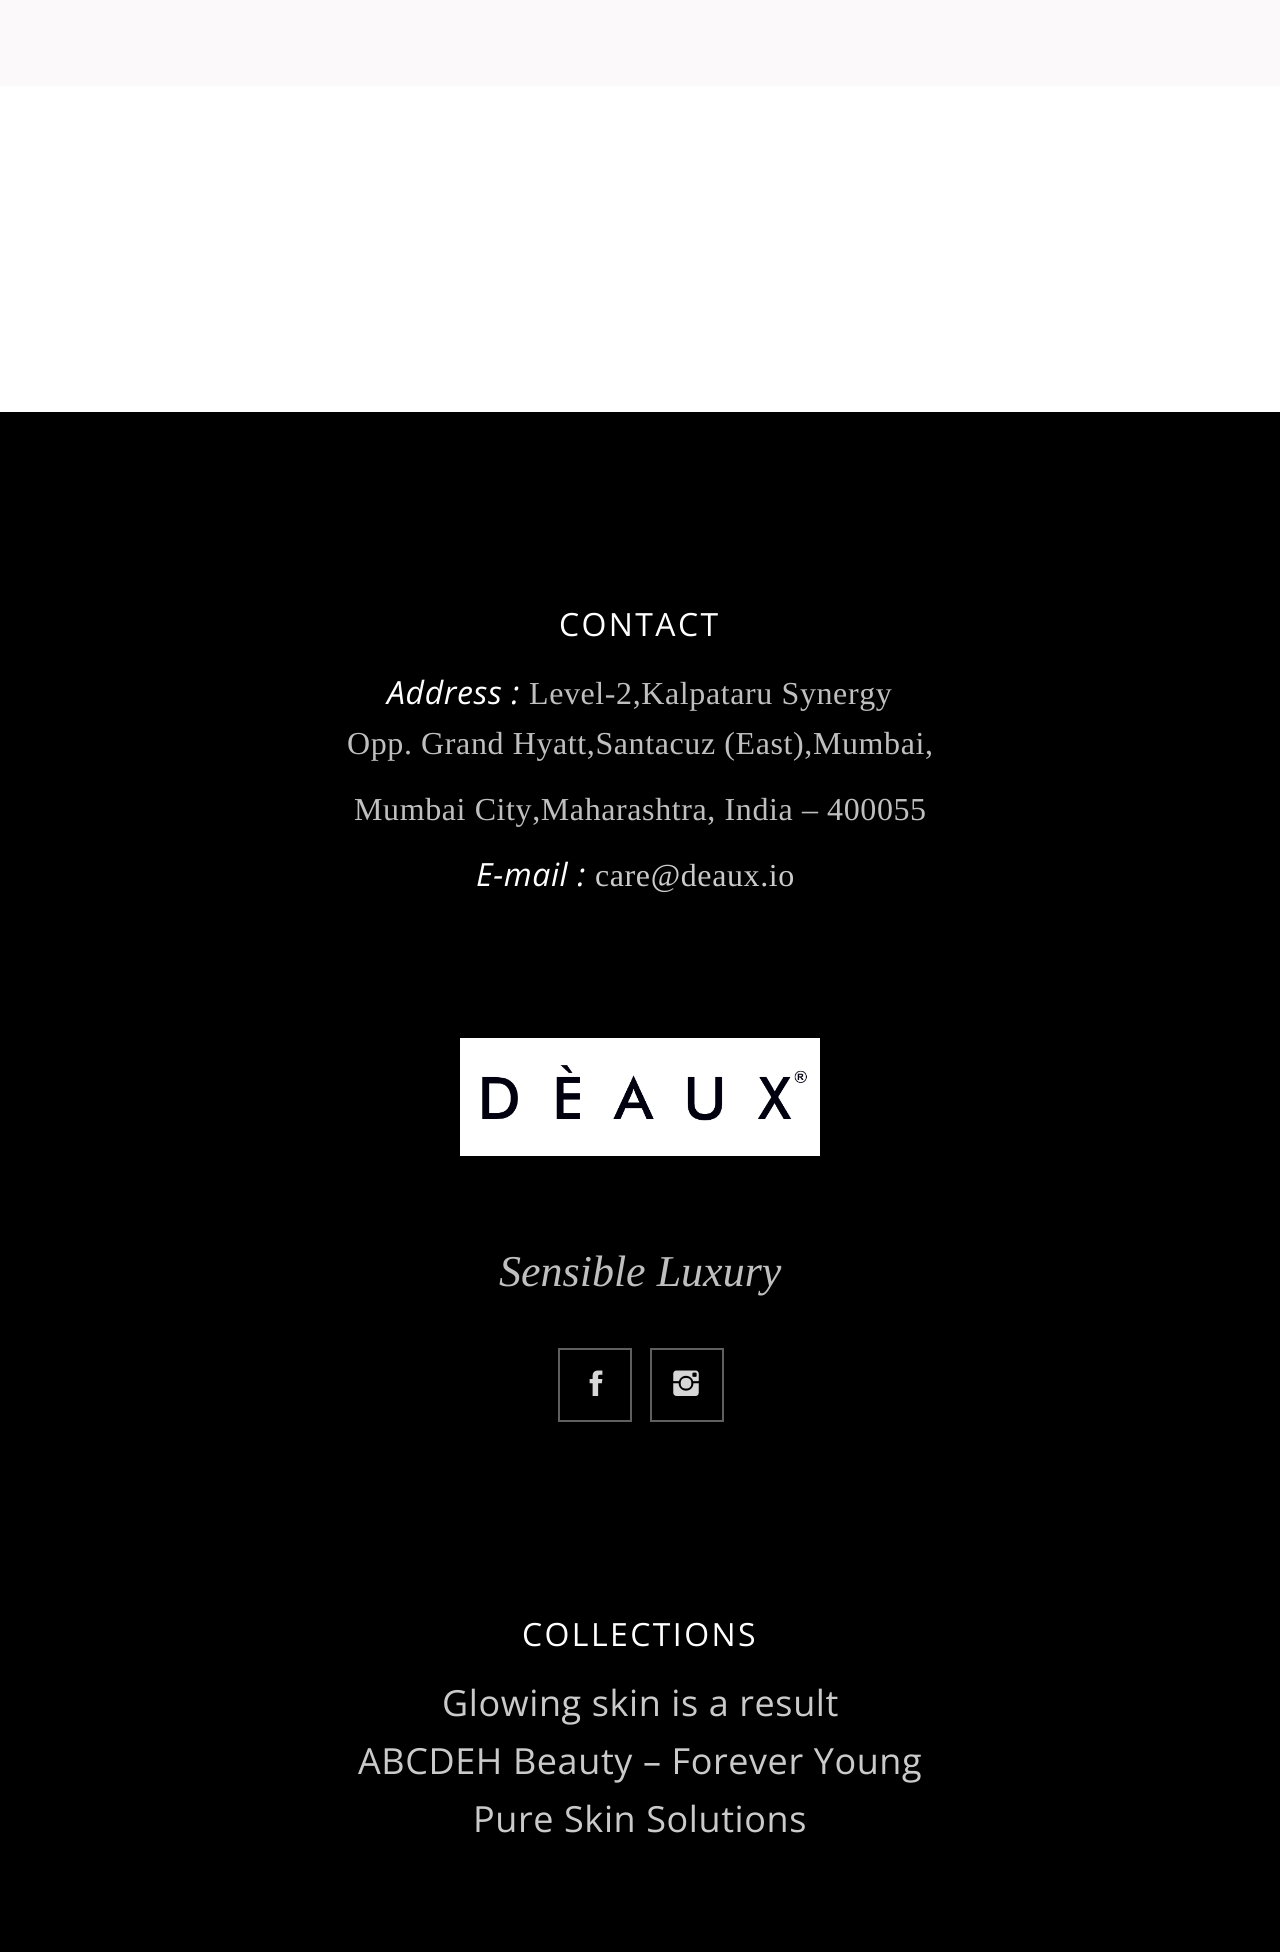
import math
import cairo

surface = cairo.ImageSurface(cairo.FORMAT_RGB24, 1280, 1952)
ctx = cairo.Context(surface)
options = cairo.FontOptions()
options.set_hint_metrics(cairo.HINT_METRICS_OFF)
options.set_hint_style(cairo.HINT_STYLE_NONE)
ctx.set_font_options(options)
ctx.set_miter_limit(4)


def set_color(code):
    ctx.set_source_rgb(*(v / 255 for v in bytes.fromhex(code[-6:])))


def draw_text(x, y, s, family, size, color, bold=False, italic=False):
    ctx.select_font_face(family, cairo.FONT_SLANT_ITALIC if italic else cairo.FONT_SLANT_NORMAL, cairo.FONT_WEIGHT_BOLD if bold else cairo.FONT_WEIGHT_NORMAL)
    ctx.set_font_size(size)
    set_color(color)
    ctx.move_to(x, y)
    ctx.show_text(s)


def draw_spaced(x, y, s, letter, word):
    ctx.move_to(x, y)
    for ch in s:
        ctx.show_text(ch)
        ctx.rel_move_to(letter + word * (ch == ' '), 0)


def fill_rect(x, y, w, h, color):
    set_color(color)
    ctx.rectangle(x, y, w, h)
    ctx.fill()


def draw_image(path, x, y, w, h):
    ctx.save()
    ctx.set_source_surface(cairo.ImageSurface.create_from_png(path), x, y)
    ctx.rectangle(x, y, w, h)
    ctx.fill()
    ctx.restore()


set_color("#ffffff")
ctx.paint()
fill_rect(0, 0, 1280, 86, "#fbf9f9")
fill_rect(0, 412, 1280, 1540, "#000000")
ctx.select_font_face("Open Sans")
ctx.set_font_size(32)
set_color("#ffffff")
draw_spaced(559, 636, "CONTACT", 2.4, 0)
ctx.select_font_face("Open Sans", cairo.FONT_SLANT_ITALIC)
draw_spaced(387, 704, "Address :", 0.6, 0)
ctx.select_font_face("Liberation Serif")
set_color("#bfbfbf")
draw_spaced(529, 704, "Level-2,Kalpataru Synergy", 0.6, 0)
draw_spaced(347, 754, "Opp. Grand Hyatt,Santacuz (East),Mumbai,", 0.6, 0)
draw_spaced(354, 820, "Mumbai City,Maharashtra, India – 400055", 0.6, 0)
ctx.select_font_face("Open Sans", cairo.FONT_SLANT_ITALIC)
set_color("#ffffff")
draw_spaced(476, 886, "E-mail :", 0.6, 0)
ctx.select_font_face("Liberation Serif")
set_color("#cacaca")
draw_spaced(595, 886, "care@deaux.io", 0.6, 0)
draw_image("assets/img1.png", 460, 1038, 360, 118)
draw_text(499, 1286, "Sensible Luxury", "Liberation Serif", 44, "#bfbfbf", italic=True)
ctx.rectangle(559, 1349, 72, 72)
set_color("#5f5f5f")
ctx.stroke()
draw_image("assets/img2.png", 589, 1370, 14, 26)
ctx.rectangle(651, 1349, 72, 72)
ctx.stroke()
draw_image("assets/img3.png", 673, 1370, 26, 26)
ctx.select_font_face("Open Sans")
ctx.set_font_size(32)
set_color("#ffffff")
draw_spaced(522, 1646, "COLLECTIONS", 2.4, 0)
ctx.set_font_size(36)
set_color("#cacaca")
draw_spaced(442, 1716, "Glowing skin is a result", 0.6, 0)
draw_spaced(358, 1774, "ABCDEH Beauty – Forever Young", 0.6, 0)
draw_spaced(473, 1832, "Pure Skin Solutions", 0.6, 0)
surface.write_to_png("output.png")
